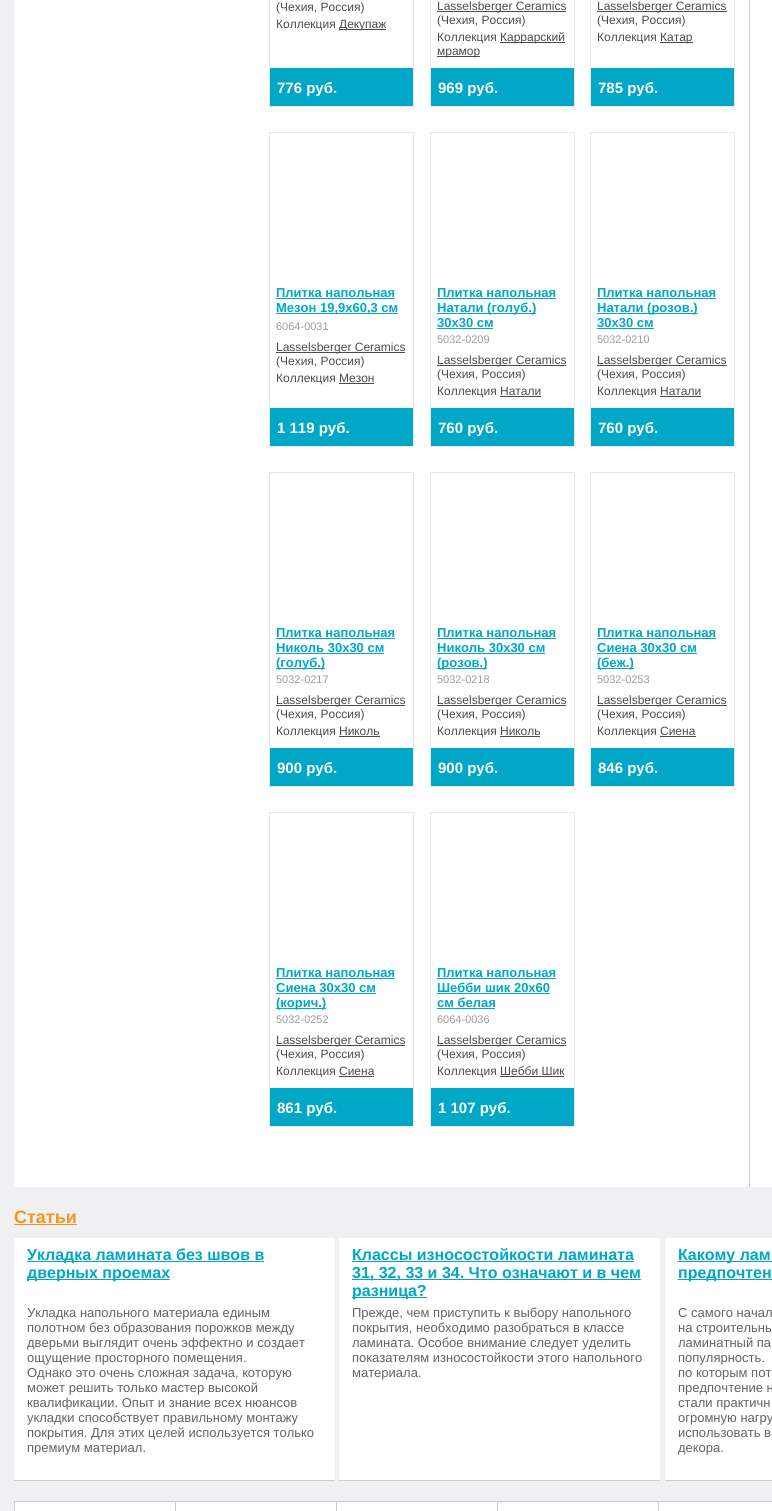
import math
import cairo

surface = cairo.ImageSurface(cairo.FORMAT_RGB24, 772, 1511)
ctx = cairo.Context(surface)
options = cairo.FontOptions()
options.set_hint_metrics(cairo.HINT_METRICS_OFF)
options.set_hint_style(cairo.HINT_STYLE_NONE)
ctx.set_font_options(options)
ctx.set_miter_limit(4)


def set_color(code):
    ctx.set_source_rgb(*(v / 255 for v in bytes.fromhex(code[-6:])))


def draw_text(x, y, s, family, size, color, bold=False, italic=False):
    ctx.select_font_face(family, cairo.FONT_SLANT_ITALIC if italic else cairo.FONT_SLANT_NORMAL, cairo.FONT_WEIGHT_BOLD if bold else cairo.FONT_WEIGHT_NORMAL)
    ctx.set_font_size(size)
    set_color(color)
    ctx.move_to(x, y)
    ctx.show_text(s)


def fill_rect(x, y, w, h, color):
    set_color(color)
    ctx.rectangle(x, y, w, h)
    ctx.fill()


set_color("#f0f0f2")
ctx.paint()
fill_rect(14, 0, 758, 1187, "#ffffff")
fill_rect(749, 0, 1, 1187, "#cccccc")
ctx.rectangle(269.5, -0.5, 144, 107)
set_color("#e8e8e8")
ctx.set_line_width(1)
ctx.stroke()
draw_text(276, 11, "(Чехия, Россия)", "Liberation Sans", 12, "#4b4b4b")
draw_text(276, 28, "Коллекция", "Liberation Sans", 12, "#4b4b4b")
fill_rect(339, 29, 47, 1, "#4b4b4b")
draw_text(339, 28, "Декупаж", "Liberation Sans", 12, "#4b4b4b")
fill_rect(270, 68, 143, 38, "#00a7c6")
draw_text(277, 93, "776 руб.", "Liberation Sans", 15, "#ffffff", bold=True)
ctx.rectangle(430.5, -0.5, 144, 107)
set_color("#e8e8e8")
ctx.stroke()
fill_rect(437, 11, 129, 1, "#4b4b4b")
draw_text(437, 10, "Lasselsberger Ceramics", "Liberation Sans", 12, "#4b4b4b")
draw_text(437, 24, "(Чехия, Россия)", "Liberation Sans", 12, "#4b4b4b")
draw_text(437, 41, "Коллекция", "Liberation Sans", 12, "#4b4b4b")
fill_rect(500, 42, 65, 1, "#4b4b4b")
draw_text(500, 41, "Каррарский", "Liberation Sans", 12, "#4b4b4b")
fill_rect(437, 56, 43, 1, "#4b4b4b")
draw_text(437, 55, "мрамор", "Liberation Sans", 12, "#4b4b4b")
fill_rect(431, 68, 143, 38, "#00a7c6")
draw_text(438, 93, "969 руб.", "Liberation Sans", 15, "#ffffff", bold=True)
ctx.rectangle(590.5, -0.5, 144, 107)
set_color("#e8e8e8")
ctx.stroke()
fill_rect(597, 11, 130, 1, "#4b4b4b")
draw_text(597, 10, "Lasselsberger Ceramics", "Liberation Sans", 12, "#4b4b4b")
draw_text(597, 24, "(Чехия, Россия)", "Liberation Sans", 12, "#4b4b4b")
draw_text(597, 41, "Коллекция", "Liberation Sans", 12, "#4b4b4b")
fill_rect(660, 42, 33, 1, "#4b4b4b")
draw_text(660, 41, "Катар", "Liberation Sans", 12, "#4b4b4b")
fill_rect(591, 68, 143, 38, "#00a7c6")
draw_text(598, 93, "785 руб.", "Liberation Sans", 15, "#ffffff", bold=True)
ctx.rectangle(269.5, 132.5, 144, 314)
set_color("#e8e8e8")
ctx.stroke()
draw_text(276, 297, "Плитка напольная", "Liberation Sans", 13, "#00a7c6", bold=True)
fill_rect(276, 298, 119, 1, "#00a7c6")
fill_rect(276, 313, 122, 1, "#00a7c6")
draw_text(276, 312, "Мезон 19,9х60,3 см", "Liberation Sans", 13, "#00a7c6", bold=True)
draw_text(276, 330, "6064-0031", "Liberation Sans", 11, "#9c9c9c")
fill_rect(276, 352, 129, 1, "#4b4b4b")
draw_text(276, 351, "Lasselsberger Ceramics", "Liberation Sans", 12, "#4b4b4b")
draw_text(276, 365, "(Чехия, Россия)", "Liberation Sans", 12, "#4b4b4b")
draw_text(276, 382, "Коллекция Мезон", "Liberation Sans", 12, "#4b4b4b")
fill_rect(339, 383, 35, 1, "#4b4b4b")
fill_rect(270, 408, 143, 38, "#00a7c6")
draw_text(277, 433, "1 119 руб.", "Liberation Sans", 15, "#ffffff", bold=True)
ctx.rectangle(430.5, 132.5, 144, 314)
set_color("#e8e8e8")
ctx.stroke()
draw_text(437, 297, "Плитка напольная", "Liberation Sans", 13, "#00a7c6", bold=True)
fill_rect(437, 298, 119, 1, "#00a7c6")
fill_rect(437, 313, 99, 1, "#00a7c6")
draw_text(437, 312, "Натали (голуб.)", "Liberation Sans", 13, "#00a7c6", bold=True)
draw_text(437, 327, "30х30 см", "Liberation Sans", 13, "#00a7c6", bold=True)
fill_rect(437, 328, 56, 1, "#00a7c6")
draw_text(437, 343, "5032-0209", "Liberation Sans", 11, "#9c9c9c")
fill_rect(437, 365, 129, 1, "#4b4b4b")
draw_text(437, 364, "Lasselsberger Ceramics", "Liberation Sans", 12, "#4b4b4b")
draw_text(437, 378, "(Чехия, Россия)", "Liberation Sans", 12, "#4b4b4b")
draw_text(437, 395, "Коллекция Натали", "Liberation Sans", 12, "#4b4b4b")
fill_rect(500, 396, 41, 1, "#4b4b4b")
fill_rect(431, 408, 143, 38, "#00a7c6")
draw_text(438, 433, "760 руб.", "Liberation Sans", 15, "#ffffff", bold=True)
ctx.rectangle(590.5, 132.5, 144, 314)
set_color("#e8e8e8")
ctx.stroke()
draw_text(597, 297, "Плитка напольная", "Liberation Sans", 13, "#00a7c6", bold=True)
fill_rect(597, 298, 119, 1, "#00a7c6")
fill_rect(597, 313, 101, 1, "#00a7c6")
draw_text(597, 312, "Натали (розов.)", "Liberation Sans", 13, "#00a7c6", bold=True)
draw_text(597, 327, "30х30 см", "Liberation Sans", 13, "#00a7c6", bold=True)
fill_rect(597, 328, 57, 1, "#00a7c6")
draw_text(597, 343, "5032-0210", "Liberation Sans", 11, "#9c9c9c")
fill_rect(597, 365, 130, 1, "#4b4b4b")
draw_text(597, 364, "Lasselsberger Ceramics", "Liberation Sans", 12, "#4b4b4b")
draw_text(597, 378, "(Чехия, Россия)", "Liberation Sans", 12, "#4b4b4b")
draw_text(597, 395, "Коллекция Натали", "Liberation Sans", 12, "#4b4b4b")
fill_rect(660, 396, 41, 1, "#4b4b4b")
fill_rect(591, 408, 143, 38, "#00a7c6")
draw_text(598, 433, "760 руб.", "Liberation Sans", 15, "#ffffff", bold=True)
ctx.rectangle(269.5, 472.5, 144, 314)
set_color("#e8e8e8")
ctx.stroke()
draw_text(276, 637, "Плитка напольная", "Liberation Sans", 13, "#00a7c6", bold=True)
fill_rect(276, 638, 119, 1, "#00a7c6")
draw_text(276, 652, "Николь 30х30 см", "Liberation Sans", 13, "#00a7c6", bold=True)
fill_rect(276, 653, 108, 1, "#00a7c6")
fill_rect(276, 668, 49, 1, "#00a7c6")
draw_text(276, 667, "(голуб.)", "Liberation Sans", 13, "#00a7c6", bold=True)
draw_text(276, 683, "5032-0217", "Liberation Sans", 11, "#9c9c9c")
fill_rect(276, 705, 129, 1, "#4b4b4b")
draw_text(276, 704, "Lasselsberger Ceramics", "Liberation Sans", 12, "#4b4b4b")
draw_text(276, 718, "(Чехия, Россия)", "Liberation Sans", 12, "#4b4b4b")
draw_text(276, 735, "Коллекция Николь", "Liberation Sans", 12, "#4b4b4b")
fill_rect(339, 736, 41, 1, "#4b4b4b")
fill_rect(270, 748, 143, 38, "#00a7c6")
draw_text(277, 773, "900 руб.", "Liberation Sans", 15, "#ffffff", bold=True)
ctx.rectangle(430.5, 472.5, 144, 314)
set_color("#e8e8e8")
ctx.stroke()
draw_text(437, 637, "Плитка напольная", "Liberation Sans", 13, "#00a7c6", bold=True)
fill_rect(437, 638, 119, 1, "#00a7c6")
draw_text(437, 652, "Николь 30х30 см", "Liberation Sans", 13, "#00a7c6", bold=True)
fill_rect(437, 653, 108, 1, "#00a7c6")
fill_rect(437, 668, 50, 1, "#00a7c6")
draw_text(437, 667, "(розов.)", "Liberation Sans", 13, "#00a7c6", bold=True)
draw_text(437, 683, "5032-0218", "Liberation Sans", 11, "#9c9c9c")
fill_rect(437, 705, 129, 1, "#4b4b4b")
draw_text(437, 704, "Lasselsberger Ceramics", "Liberation Sans", 12, "#4b4b4b")
draw_text(437, 718, "(Чехия, Россия)", "Liberation Sans", 12, "#4b4b4b")
draw_text(437, 735, "Коллекция Николь", "Liberation Sans", 12, "#4b4b4b")
fill_rect(500, 736, 40, 1, "#4b4b4b")
fill_rect(431, 748, 143, 38, "#00a7c6")
draw_text(438, 773, "900 руб.", "Liberation Sans", 15, "#ffffff", bold=True)
ctx.rectangle(590.5, 472.5, 144, 314)
set_color("#e8e8e8")
ctx.stroke()
draw_text(597, 637, "Плитка напольная", "Liberation Sans", 13, "#00a7c6", bold=True)
fill_rect(597, 638, 119, 1, "#00a7c6")
draw_text(597, 652, "Сиена 30х30 см", "Liberation Sans", 13, "#00a7c6", bold=True)
fill_rect(597, 653, 100, 1, "#00a7c6")
fill_rect(597, 668, 37, 1, "#00a7c6")
draw_text(597, 667, "(беж.)", "Liberation Sans", 13, "#00a7c6", bold=True)
draw_text(597, 683, "5032-0253", "Liberation Sans", 11, "#9c9c9c")
fill_rect(597, 705, 130, 1, "#4b4b4b")
draw_text(597, 704, "Lasselsberger Ceramics", "Liberation Sans", 12, "#4b4b4b")
draw_text(597, 718, "(Чехия, Россия)", "Liberation Sans", 12, "#4b4b4b")
draw_text(597, 735, "Коллекция Сиена", "Liberation Sans", 12, "#4b4b4b")
fill_rect(660, 736, 36, 1, "#4b4b4b")
fill_rect(591, 748, 143, 38, "#00a7c6")
draw_text(598, 773, "846 руб.", "Liberation Sans", 15, "#ffffff", bold=True)
ctx.rectangle(269.5, 812.5, 144, 314)
set_color("#e8e8e8")
ctx.stroke()
draw_text(276, 977, "Плитка напольная", "Liberation Sans", 13, "#00a7c6", bold=True)
fill_rect(276, 978, 119, 1, "#00a7c6")
draw_text(276, 992, "Сиена 30х30 см", "Liberation Sans", 13, "#00a7c6", bold=True)
fill_rect(276, 993, 100, 1, "#00a7c6")
fill_rect(276, 1008, 50, 1, "#00a7c6")
draw_text(276, 1007, "(корич.)", "Liberation Sans", 13, "#00a7c6", bold=True)
draw_text(276, 1023, "5032-0252", "Liberation Sans", 11, "#9c9c9c")
fill_rect(276, 1045, 129, 1, "#4b4b4b")
draw_text(276, 1044, "Lasselsberger Ceramics", "Liberation Sans", 12, "#4b4b4b")
draw_text(276, 1058, "(Чехия, Россия)", "Liberation Sans", 12, "#4b4b4b")
draw_text(276, 1075, "Коллекция Сиена", "Liberation Sans", 12, "#4b4b4b")
fill_rect(339, 1076, 35, 1, "#4b4b4b")
fill_rect(270, 1088, 143, 38, "#00a7c6")
draw_text(277, 1113, "861 руб.", "Liberation Sans", 15, "#ffffff", bold=True)
ctx.rectangle(430.5, 812.5, 144, 314)
set_color("#e8e8e8")
ctx.stroke()
draw_text(437, 977, "Плитка напольная", "Liberation Sans", 13, "#00a7c6", bold=True)
fill_rect(437, 978, 119, 1, "#00a7c6")
draw_text(437, 992, "Шебби шик 20х60", "Liberation Sans", 13, "#00a7c6", bold=True)
fill_rect(437, 993, 113, 1, "#00a7c6")
draw_text(437, 1007, "см белая", "Liberation Sans", 13, "#00a7c6", bold=True)
fill_rect(437, 1008, 58, 1, "#00a7c6")
draw_text(437, 1023, "6064-0036", "Liberation Sans", 11, "#9c9c9c")
fill_rect(437, 1045, 129, 1, "#4b4b4b")
draw_text(437, 1044, "Lasselsberger Ceramics", "Liberation Sans", 12, "#4b4b4b")
draw_text(437, 1058, "(Чехия, Россия)", "Liberation Sans", 12, "#4b4b4b")
draw_text(437, 1075, "Коллекция Шебби Шик", "Liberation Sans", 12, "#4b4b4b")
fill_rect(500, 1076, 64, 1, "#4b4b4b")
fill_rect(431, 1088, 143, 38, "#00a7c6")
draw_text(438, 1113, "1 107 руб.", "Liberation Sans", 15, "#ffffff", bold=True)
draw_text(14, 1223, "Статьи", "Liberation Sans", 18, "#f7941d", bold=True)
fill_rect(14, 1224, 63, 1, "#f7941d")
fill_rect(14, 1238, 321, 242, "#ffffff")
fill_rect(14, 1480, 321, 1, "#cccccc")
fill_rect(27, 1261, 237, 1, "#00a7c6")
draw_text(27, 1260, "Укладка ламината без швов в", "Liberation Sans", 16, "#00a7c6", bold=True)
fill_rect(27, 1279, 143, 1, "#00a7c6")
draw_text(27, 1278, "дверных проемах", "Liberation Sans", 16, "#00a7c6", bold=True)
draw_text(27, 1317, "Укладка напольного материала единым", "Liberation Sans", 13, "#636363")
draw_text(27, 1332, "полотном без образования порожков между", "Liberation Sans", 13, "#636363")
draw_text(27, 1347, "дверьми выглядит очень эффектно и создает", "Liberation Sans", 13, "#636363")
draw_text(27, 1362, "ощущение просторного помещения.", "Liberation Sans", 13, "#636363")
draw_text(27, 1377, "Однако это очень сложная задача, которую", "Liberation Sans", 13, "#636363")
draw_text(27, 1392, "может решить только мастер высокой", "Liberation Sans", 13, "#636363")
draw_text(27, 1407, "квалификации. Опыт и знание всех нюансов", "Liberation Sans", 13, "#636363")
draw_text(27, 1422, "укладки способствует правильному монтажу", "Liberation Sans", 13, "#636363")
draw_text(27, 1437, "покрытия. Для этих целей используется только", "Liberation Sans", 13, "#636363")
draw_text(27, 1452, "премиум материал.", "Liberation Sans", 13, "#636363")
fill_rect(339, 1238, 321, 242, "#ffffff")
fill_rect(339, 1480, 321, 1, "#cccccc")
draw_text(352, 1260, "Классы износостойкости ламината", "Liberation Sans", 16, "#00a7c6", bold=True)
fill_rect(352, 1261, 282, 1, "#00a7c6")
fill_rect(352, 1279, 289, 1, "#00a7c6")
draw_text(352, 1278, "31, 32, 33 и 34. Что означают и в чем", "Liberation Sans", 16, "#00a7c6", bold=True)
fill_rect(352, 1297, 75, 1, "#00a7c6")
draw_text(352, 1296, "разница?", "Liberation Sans", 16, "#00a7c6", bold=True)
draw_text(352, 1317, "Прежде, чем приступить к выбору напольного", "Liberation Sans", 13, "#636363")
draw_text(352, 1332, "покрытия, необходимо разобраться в классе", "Liberation Sans", 13, "#636363")
draw_text(352, 1347, "ламината. Особое внимание следует уделить", "Liberation Sans", 13, "#636363")
draw_text(352, 1362, "показателям износостойкости этого напольного", "Liberation Sans", 13, "#636363")
draw_text(352, 1377, "материала.", "Liberation Sans", 13, "#636363")
fill_rect(665, 1238, 107, 242, "#ffffff")
fill_rect(665, 1480, 107, 1, "#cccccc")
fill_rect(678, 1261, 94, 1, "#00a7c6")
draw_text(678, 1260, "Какому лам", "Liberation Sans", 16, "#00a7c6", bold=True)
fill_rect(678, 1279, 94, 1, "#00a7c6")
draw_text(678, 1278, "предпочтен", "Liberation Sans", 16, "#00a7c6", bold=True)
draw_text(678, 1317, "С самого начал", "Liberation Sans", 13, "#636363")
draw_text(678, 1332, "на строительны", "Liberation Sans", 13, "#636363")
draw_text(678, 1347, "ламинатный па", "Liberation Sans", 13, "#636363")
draw_text(678, 1362, "популярность.", "Liberation Sans", 13, "#636363")
draw_text(678, 1377, "по которым пот", "Liberation Sans", 13, "#636363")
draw_text(678, 1392, "предпочтение н", "Liberation Sans", 13, "#636363")
draw_text(678, 1407, "стали практичн", "Liberation Sans", 13, "#636363")
draw_text(678, 1422, "огромную нагру", "Liberation Sans", 13, "#636363")
draw_text(678, 1437, "использовать в", "Liberation Sans", 13, "#636363")
draw_text(678, 1452, "декора.", "Liberation Sans", 13, "#636363")
set_color("#ffffff")
ctx.rectangle(14.5, 1501.5, 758, 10)
ctx.fill_preserve()
set_color("#cccccc")
ctx.stroke()
fill_rect(175, 1502, 1, 9, "#cccccc")
fill_rect(336, 1502, 1, 9, "#cccccc")
fill_rect(497, 1502, 1, 9, "#cccccc")
fill_rect(658, 1502, 1, 9, "#cccccc")
surface.write_to_png("output.png")
